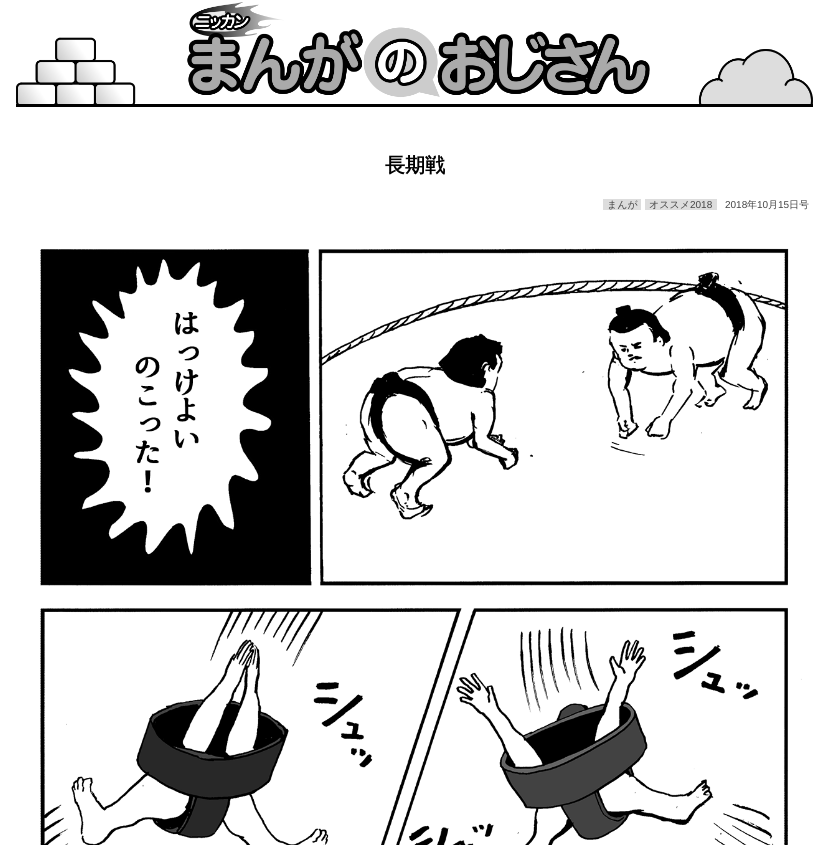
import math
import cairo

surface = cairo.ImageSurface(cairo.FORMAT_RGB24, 829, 845)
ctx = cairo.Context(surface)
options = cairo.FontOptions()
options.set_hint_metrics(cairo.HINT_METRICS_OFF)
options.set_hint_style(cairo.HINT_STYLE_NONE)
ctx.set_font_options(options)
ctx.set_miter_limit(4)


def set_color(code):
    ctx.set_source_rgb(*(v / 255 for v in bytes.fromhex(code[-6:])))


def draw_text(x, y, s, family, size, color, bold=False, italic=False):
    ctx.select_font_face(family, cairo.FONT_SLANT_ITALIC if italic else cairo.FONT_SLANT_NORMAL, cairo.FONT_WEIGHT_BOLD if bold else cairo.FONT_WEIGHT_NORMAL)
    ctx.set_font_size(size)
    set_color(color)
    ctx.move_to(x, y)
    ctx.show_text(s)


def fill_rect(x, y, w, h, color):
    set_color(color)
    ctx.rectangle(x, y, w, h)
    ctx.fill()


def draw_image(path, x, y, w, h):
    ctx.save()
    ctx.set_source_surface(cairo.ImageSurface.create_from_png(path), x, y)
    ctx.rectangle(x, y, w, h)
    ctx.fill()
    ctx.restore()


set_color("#ffffff")
ctx.paint()
draw_image("assets/img1.png", 16, 2, 797, 102)
fill_rect(16, 104, 797, 3, "#000000")
draw_text(385, 172, "長期戦", "WenQuanYi Zen Hei", 20, "#000000", bold=True)
fill_rect(603, 199, 38, 11, "#dddddd")
draw_text(607, 208, "まんが", "WenQuanYi Zen Hei Medium", 10, "#444444")
fill_rect(645, 199, 72, 11, "#dddddd")
draw_text(649, 208, "オススメ", "WenQuanYi Zen Hei Medium", 10, "#444444")
draw_text(690, 208, "2018", "Liberation Sans", 10, "#444444")
draw_text(725, 208, "2018", "Liberation Sans", 10, "#444444")
draw_text(747, 208, "年", "WenQuanYi Zen Hei Medium", 10, "#444444")
draw_text(757, 208, "10", "Liberation Sans", 10, "#444444")
draw_text(768, 208, "月", "WenQuanYi Zen Hei Medium", 10, "#444444")
draw_text(778, 208, "15", "Liberation Sans", 10, "#444444")
draw_text(789, 208, "日号", "WenQuanYi Zen Hei Medium", 10, "#444444")
draw_image("assets/img2.png", 40, 248, 762, 597)
surface.write_to_png("output.png")
